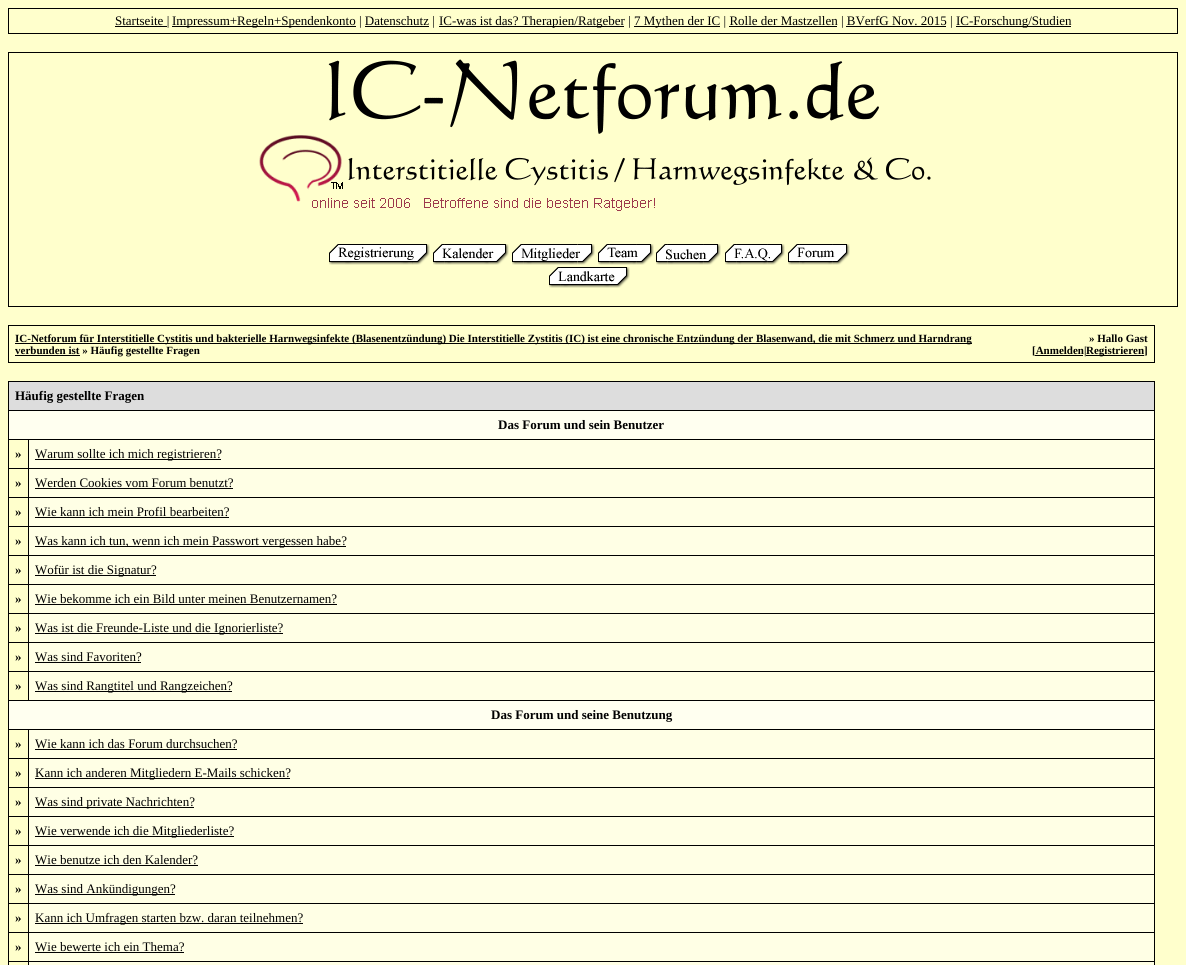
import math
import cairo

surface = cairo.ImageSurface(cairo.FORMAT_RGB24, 1186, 965)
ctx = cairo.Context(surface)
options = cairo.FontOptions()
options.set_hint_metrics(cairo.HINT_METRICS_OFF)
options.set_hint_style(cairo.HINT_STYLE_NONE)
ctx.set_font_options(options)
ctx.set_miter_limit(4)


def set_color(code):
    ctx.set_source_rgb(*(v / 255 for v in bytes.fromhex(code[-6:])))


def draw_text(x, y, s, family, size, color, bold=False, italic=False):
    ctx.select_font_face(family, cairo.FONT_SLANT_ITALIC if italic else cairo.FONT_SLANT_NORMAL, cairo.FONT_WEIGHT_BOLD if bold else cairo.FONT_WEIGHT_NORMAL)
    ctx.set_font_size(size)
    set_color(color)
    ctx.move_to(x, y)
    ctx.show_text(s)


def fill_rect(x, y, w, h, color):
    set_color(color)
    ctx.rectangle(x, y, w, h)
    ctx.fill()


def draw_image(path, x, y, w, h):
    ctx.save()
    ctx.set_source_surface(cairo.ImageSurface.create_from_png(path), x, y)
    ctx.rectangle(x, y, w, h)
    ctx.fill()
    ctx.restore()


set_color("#ffffcc")
ctx.paint()
fill_rect(8, 8, 1170, 26, "#000000")
fill_rect(9, 9, 1168, 24, "#ffffcc")
fill_rect(115, 26, 52, 1, "#000000")
draw_text(115, 25, "Startseite |", "Liberation Serif", 13, "#000000")
fill_rect(172, 26, 184, 1, "#000000")
draw_text(172, 25, "Impressum+Regeln+Spendenkonto | Datenschutz |", "Liberation Serif", 13, "#000000")
fill_rect(365, 26, 64, 1, "#000000")
fill_rect(439, 26, 185, 1, "#000000")
draw_text(439, 25, "IC-was ist das? Therapien/Ratgeber |", "Liberation Serif", 13, "#000000")
fill_rect(634, 26, 86, 1, "#000000")
draw_text(634, 25, "7 Mythen der IC | Rolle der Mastzellen | BVerfG Nov. 2015 |", "Liberation Serif", 13, "#000000")
fill_rect(729, 26, 108, 1, "#000000")
fill_rect(846, 26, 100, 1, "#000000")
fill_rect(956, 26, 115, 1, "#000000")
draw_text(956, 25, "IC-Forschung/Studien", "Liberation Serif", 13, "#000000")
fill_rect(8, 52, 1170, 255, "#000000")
fill_rect(9, 53, 1168, 253, "#ffffcc")
draw_image("assets/img1.png", 259, 59, 672, 152)
draw_image("assets/img2.png", 329, 244, 101, 21)
draw_image("assets/img3.png", 433, 244, 76, 21)
draw_image("assets/img4.png", 512, 244, 83, 21)
draw_image("assets/img5.png", 598, 244, 56, 21)
draw_image("assets/img6.png", 656, 244, 65, 21)
draw_image("assets/img7.png", 725, 244, 60, 21)
draw_image("assets/img8.png", 788, 244, 62, 21)
draw_image("assets/img9.png", 549, 267, 81, 21)
fill_rect(8, 325, 1147, 38, "#000000")
fill_rect(9, 326, 1145, 36, "#ffffcc")
fill_rect(15, 343, 957, 1, "#000000")
draw_text(15, 342, "IC-Netforum für Interstitielle Cystitis und bakterielle Harnwegsinfekte (Blasenentzündung) Die Interstitielle Zystitis (IC) ist eine chronische Entzündung der Blasenwand, die mit Schmerz und Harndrang", "Liberation Serif", 11, "#000000", bold=True)
fill_rect(15, 355, 65, 1, "#000000")
draw_text(15, 354, "verbunden ist » Häufig gestellte Fragen", "Liberation Serif", 11, "#000000", bold=True)
draw_text(1089, 342, "» Hallo Gast", "Liberation Serif", 11, "#000000", bold=True)
draw_text(1032, 354, "[Anmelden|", "Liberation Serif", 11, "#000000", bold=True)
fill_rect(1035, 355, 48, 1, "#000000")
fill_rect(1086, 355, 58, 1, "#000000")
draw_text(1086, 354, "Registrieren]", "Liberation Serif", 11, "#000000", bold=True)
fill_rect(8, 381, 1147, 584, "#000000")
fill_rect(9, 382, 1145, 28, "#dddddd")
draw_text(15, 400, "Häufig gestellte Fragen", "Liberation Serif", 13, "#000000", bold=True)
fill_rect(9, 411, 1145, 28, "#fffff0")
draw_text(498, 429, "Das Forum und sein Benutzer", "Liberation Serif", 13, "#000000", bold=True)
fill_rect(9, 440, 19, 28, "#ffffcc")
draw_text(15, 458, "»", "Liberation Serif", 13, "#000000", bold=True)
fill_rect(29, 440, 1125, 28, "#ffffe5")
fill_rect(35, 459, 186, 1, "#000000")
draw_text(35, 458, "Warum sollte ich mich registrieren?", "Liberation Serif", 13, "#000000")
fill_rect(9, 469, 19, 28, "#ffffcc")
draw_text(15, 487, "»", "Liberation Serif", 13, "#000000", bold=True)
fill_rect(29, 469, 1125, 28, "#ffffe5")
draw_text(35, 487, "Werden Cookies vom Forum benutzt?", "Liberation Serif", 13, "#000000")
fill_rect(35, 488, 198, 1, "#000000")
fill_rect(9, 498, 19, 28, "#ffffcc")
draw_text(15, 516, "»", "Liberation Serif", 13, "#000000", bold=True)
fill_rect(29, 498, 1125, 28, "#ffffe5")
draw_text(35, 516, "Wie kann ich mein Profil bearbeiten?", "Liberation Serif", 13, "#000000")
fill_rect(35, 517, 194, 1, "#000000")
fill_rect(9, 527, 19, 28, "#ffffcc")
draw_text(15, 545, "»", "Liberation Serif", 13, "#000000", bold=True)
fill_rect(29, 527, 1125, 28, "#ffffe5")
fill_rect(35, 546, 311, 1, "#000000")
draw_text(35, 545, "Was kann ich tun, wenn ich mein Passwort vergessen habe?", "Liberation Serif", 13, "#000000")
fill_rect(9, 556, 19, 28, "#ffffcc")
draw_text(15, 574, "»", "Liberation Serif", 13, "#000000", bold=True)
fill_rect(29, 556, 1125, 28, "#ffffe5")
fill_rect(35, 575, 121, 1, "#000000")
draw_text(35, 574, "Wofür ist die Signatur?", "Liberation Serif", 13, "#000000")
fill_rect(9, 585, 19, 28, "#ffffcc")
draw_text(15, 603, "»", "Liberation Serif", 13, "#000000", bold=True)
fill_rect(29, 585, 1125, 28, "#ffffe5")
draw_text(35, 603, "Wie bekomme ich ein Bild unter meinen Benutzernamen?", "Liberation Serif", 13, "#000000")
fill_rect(35, 604, 302, 1, "#000000")
fill_rect(9, 614, 19, 28, "#ffffcc")
draw_text(15, 632, "»", "Liberation Serif", 13, "#000000", bold=True)
fill_rect(29, 614, 1125, 28, "#ffffe5")
fill_rect(35, 633, 248, 1, "#000000")
draw_text(35, 632, "Was ist die Freunde-Liste und die Ignorierliste?", "Liberation Serif", 13, "#000000")
fill_rect(9, 643, 19, 28, "#ffffcc")
draw_text(15, 661, "»", "Liberation Serif", 13, "#000000", bold=True)
fill_rect(29, 643, 1125, 28, "#ffffe5")
draw_text(35, 661, "Was sind Favoriten?", "Liberation Serif", 13, "#000000")
fill_rect(35, 662, 106, 1, "#000000")
fill_rect(9, 672, 19, 28, "#ffffcc")
draw_text(15, 690, "»", "Liberation Serif", 13, "#000000", bold=True)
fill_rect(29, 672, 1125, 28, "#ffffe5")
fill_rect(35, 691, 197, 1, "#000000")
draw_text(35, 690, "Was sind Rangtitel und Rangzeichen?", "Liberation Serif", 13, "#000000")
fill_rect(9, 701, 1145, 28, "#fffff0")
draw_text(491, 719, "Das Forum und seine Benutzung", "Liberation Serif", 13, "#000000", bold=True)
fill_rect(9, 730, 19, 28, "#ffffcc")
draw_text(15, 748, "»", "Liberation Serif", 13, "#000000", bold=True)
fill_rect(29, 730, 1125, 28, "#ffffe5")
draw_text(35, 748, "Wie kann ich das Forum durchsuchen?", "Liberation Serif", 13, "#000000")
fill_rect(35, 749, 202, 1, "#000000")
fill_rect(9, 759, 19, 28, "#ffffcc")
draw_text(15, 777, "»", "Liberation Serif", 13, "#000000", bold=True)
fill_rect(29, 759, 1125, 28, "#ffffe5")
fill_rect(35, 778, 255, 1, "#000000")
draw_text(35, 777, "Kann ich anderen Mitgliedern E-Mails schicken?", "Liberation Serif", 13, "#000000")
fill_rect(9, 788, 19, 28, "#ffffcc")
draw_text(15, 806, "»", "Liberation Serif", 13, "#000000", bold=True)
fill_rect(29, 788, 1125, 28, "#ffffe5")
fill_rect(35, 807, 159, 1, "#000000")
draw_text(35, 806, "Was sind private Nachrichten?", "Liberation Serif", 13, "#000000")
fill_rect(9, 817, 19, 28, "#ffffcc")
draw_text(15, 835, "»", "Liberation Serif", 13, "#000000", bold=True)
fill_rect(29, 817, 1125, 28, "#ffffe5")
fill_rect(35, 836, 199, 1, "#000000")
draw_text(35, 835, "Wie verwende ich die Mitgliederliste?", "Liberation Serif", 13, "#000000")
fill_rect(9, 846, 19, 28, "#ffffcc")
draw_text(15, 864, "»", "Liberation Serif", 13, "#000000", bold=True)
fill_rect(29, 846, 1125, 28, "#ffffe5")
draw_text(35, 864, "Wie benutze ich den Kalender?", "Liberation Serif", 13, "#000000")
fill_rect(35, 865, 163, 1, "#000000")
fill_rect(9, 875, 19, 28, "#ffffcc")
draw_text(15, 893, "»", "Liberation Serif", 13, "#000000", bold=True)
fill_rect(29, 875, 1125, 28, "#ffffe5")
fill_rect(35, 894, 140, 1, "#000000")
draw_text(35, 893, "Was sind Ankündigungen?", "Liberation Serif", 13, "#000000")
fill_rect(9, 904, 19, 28, "#ffffcc")
draw_text(15, 922, "»", "Liberation Serif", 13, "#000000", bold=True)
fill_rect(29, 904, 1125, 28, "#ffffe5")
fill_rect(35, 923, 268, 1, "#000000")
draw_text(35, 922, "Kann ich Umfragen starten bzw. daran teilnehmen?", "Liberation Serif", 13, "#000000")
fill_rect(9, 933, 19, 28, "#ffffcc")
draw_text(15, 951, "»", "Liberation Serif", 13, "#000000", bold=True)
fill_rect(29, 933, 1125, 28, "#ffffe5")
draw_text(35, 951, "Wie bewerte ich ein Thema?", "Liberation Serif", 13, "#000000")
fill_rect(35, 952, 149, 1, "#000000")
fill_rect(9, 962, 19, 3, "#ffffcc")
fill_rect(29, 962, 1125, 3, "#ffffe5")
surface.write_to_png("output.png")
